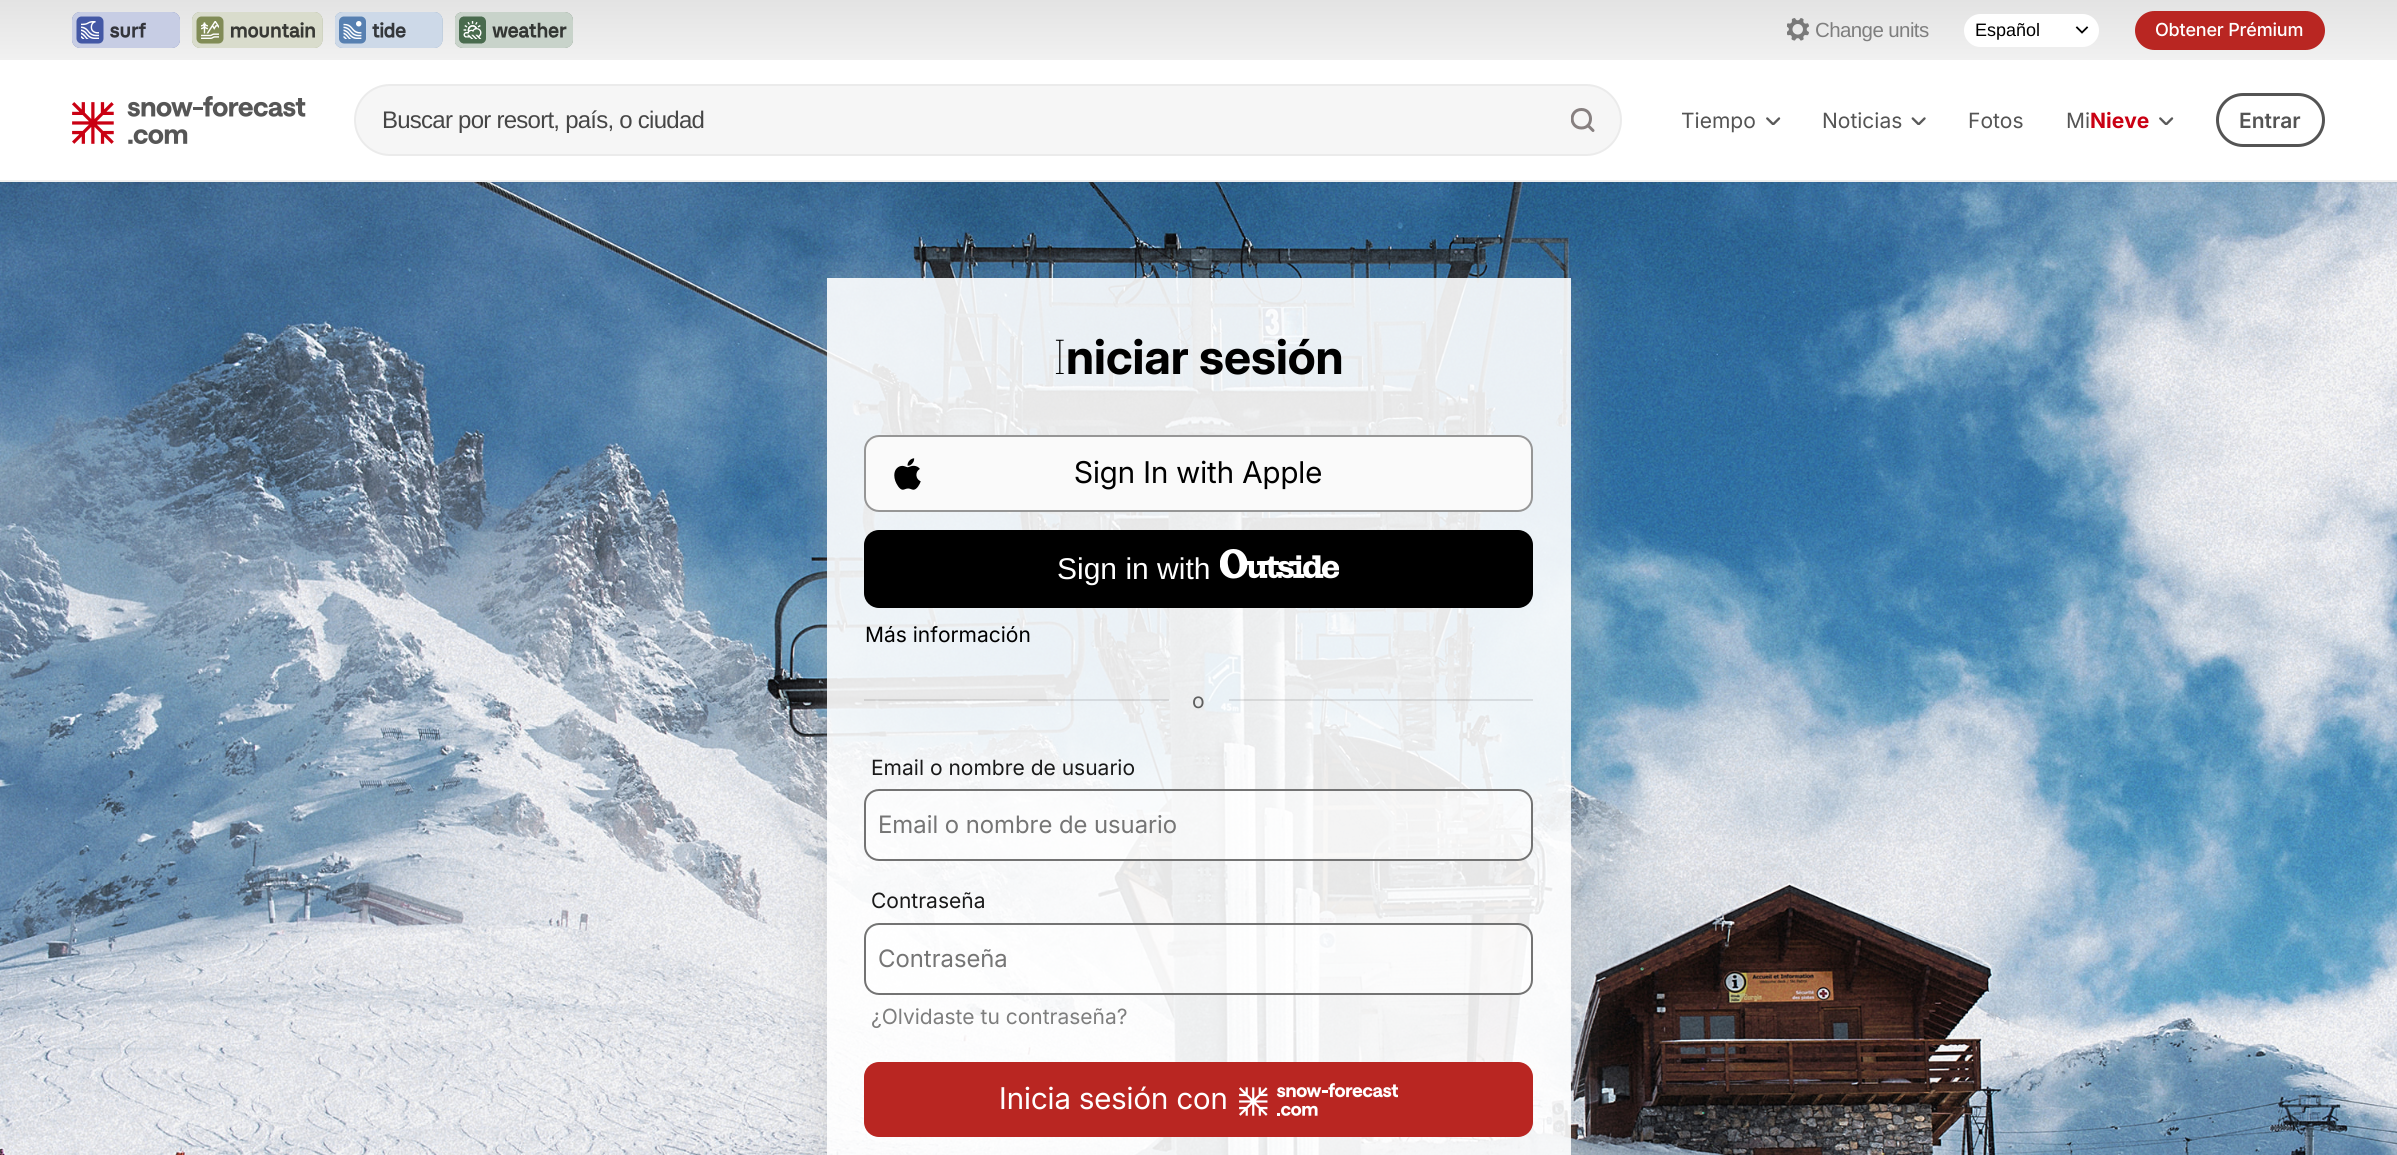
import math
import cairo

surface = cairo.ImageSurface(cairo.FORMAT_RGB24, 2397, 1155)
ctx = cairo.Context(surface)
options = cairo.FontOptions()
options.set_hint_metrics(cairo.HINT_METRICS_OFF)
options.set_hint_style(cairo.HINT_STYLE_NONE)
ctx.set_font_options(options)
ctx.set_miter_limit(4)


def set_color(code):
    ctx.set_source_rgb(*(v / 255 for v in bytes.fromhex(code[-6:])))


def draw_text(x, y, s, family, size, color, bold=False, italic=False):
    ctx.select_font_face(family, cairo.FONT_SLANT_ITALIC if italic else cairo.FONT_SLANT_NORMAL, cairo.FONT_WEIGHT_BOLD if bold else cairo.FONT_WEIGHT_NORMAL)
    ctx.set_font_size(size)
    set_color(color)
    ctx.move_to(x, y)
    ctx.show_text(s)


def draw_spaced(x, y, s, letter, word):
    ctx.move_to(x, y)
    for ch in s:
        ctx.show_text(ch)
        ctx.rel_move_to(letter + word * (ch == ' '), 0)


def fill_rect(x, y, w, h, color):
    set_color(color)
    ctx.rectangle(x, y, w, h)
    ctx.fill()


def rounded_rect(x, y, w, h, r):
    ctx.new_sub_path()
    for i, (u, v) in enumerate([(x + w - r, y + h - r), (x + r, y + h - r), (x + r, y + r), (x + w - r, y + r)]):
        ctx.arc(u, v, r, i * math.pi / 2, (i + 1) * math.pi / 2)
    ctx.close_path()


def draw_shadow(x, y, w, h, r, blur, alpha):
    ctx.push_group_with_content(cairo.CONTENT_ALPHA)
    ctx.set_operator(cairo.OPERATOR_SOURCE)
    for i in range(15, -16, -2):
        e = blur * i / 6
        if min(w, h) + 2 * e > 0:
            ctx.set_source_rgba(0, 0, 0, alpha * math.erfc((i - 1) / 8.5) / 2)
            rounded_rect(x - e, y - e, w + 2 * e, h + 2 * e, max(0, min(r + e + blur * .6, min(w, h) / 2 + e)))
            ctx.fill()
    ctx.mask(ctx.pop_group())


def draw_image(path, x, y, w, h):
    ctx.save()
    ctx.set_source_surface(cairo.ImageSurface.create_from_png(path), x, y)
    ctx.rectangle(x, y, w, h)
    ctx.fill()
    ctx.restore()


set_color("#ffffff")
ctx.paint()
draw_image("assets/img9.png", 0, 182, 2397, 973)
set_color("#000000")
draw_shadow(0, 2, 2397, 181, 0, 1.5, 0.05)
fill_rect(0, 60, 2397, 120, "#ffffff")
fill_rect(0, 180, 2397, 2, "#f0f0f0")
gradient = cairo.LinearGradient(1199, 0, 1199, 60)
gradient.add_color_stop_rgba(0, 0.89, 0.89, 0.89, 1)
gradient.add_color_stop_rgba(1, 0.945, 0.945, 0.945, 1)
ctx.set_source(gradient)
ctx.rectangle(0, 0, 2397, 60)
ctx.fill()
draw_image("assets/img1.png", 72, 12, 108, 36)
draw_image("assets/img2.png", 192, 12, 131, 36)
draw_image("assets/img3.png", 335, 12, 108, 36)
draw_image("assets/img4.png", 455, 12, 118, 36)
draw_image("assets/img5.png", 1787, 18, 22, 23)
ctx.select_font_face("Liberation Sans")
ctx.set_font_size(20.5)
set_color("#7e7e7e")
draw_spaced(1815, 37, "Change units", -0.6, 0)
set_color("#ffffff")
rounded_rect(1964, 14, 135, 33, 16.5)
ctx.fill()
ctx.new_path()
ctx.move_to(2077, 27.5)
ctx.line_to(2082, 32.5)
ctx.line_to(2087, 27.5)
set_color("#000000")
ctx.set_line_width(1.8)
ctx.set_line_cap(cairo.LINE_CAP_SQUARE)
ctx.stroke()
draw_text(1975, 36, "Español", "Liberation Sans", 18, "#000000")
set_color("#b92622")
rounded_rect(2135, 11, 190, 39, 19.5)
ctx.fill()
ctx.select_font_face("Inter Medium")
set_color("#ffffff")
draw_spaced(2155, 36, "Obtener Prémium", -0.2, 0)
draw_image("assets/img6.png", 72, 96, 234, 48)
set_color("#f6f6f6")
rounded_rect(355, 85, 1266, 70, 35)
ctx.fill_preserve()
set_color("#ebebeb")
ctx.set_line_width(2)
ctx.set_line_cap(cairo.LINE_CAP_BUTT)
ctx.stroke()
ctx.select_font_face("Liberation Sans")
ctx.set_font_size(24)
set_color("#464646")
draw_spaced(382, 128, "Buscar por resort, país, o ciudad", -0.75, 0)
ctx.save()
ctx.rectangle(1571, 108, 24, 24)
ctx.clip()
ctx.new_path()
ctx.move_to(1581.5, 128)
ctx.curve_to(1593.5, 128, 1593.5, 109.5, 1581.5, 109.5)
ctx.curve_to(1569, 109.5, 1569, 128, 1581.5, 128)
ctx.close_path()
set_color("#878080")
ctx.set_line_width(3)
ctx.set_line_cap(cairo.LINE_CAP_ROUND)
ctx.set_line_join(cairo.LINE_JOIN_ROUND)
ctx.stroke()
ctx.restore()
ctx.new_path()
ctx.move_to(1593, 130.5)
ctx.line_to(1588, 125.5)
set_color("#878080")
ctx.set_line_width(3)
ctx.set_line_cap(cairo.LINE_CAP_ROUND)
ctx.set_line_join(cairo.LINE_JOIN_ROUND)
ctx.stroke()
draw_text(1681, 128, "Tiempo", "Inter", 21, "#545454")
draw_image("assets/img7.png", 1766, 117, 15, 8)
draw_text(1822, 128, "Noticias", "Inter", 21, "#545454")
draw_image("assets/img8.png", 1911, 117, 15, 8)
draw_text(1968, 128, "Fotos", "Inter", 21, "#545454")
draw_text(2066, 128, "Mi", "Inter", 21, "#545454")
draw_text(2090, 128, "Nieve", "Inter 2", 21, "#ca0013", bold=True)
draw_image("assets/img7.png", 2159, 117, 15, 8)
rounded_rect(2217.5, 94.5, 106, 51, 25.5)
set_color("#545454")
ctx.set_line_cap(cairo.LINE_CAP_BUTT)
ctx.set_line_join(cairo.LINE_JOIN_MITER)
ctx.stroke()
draw_text(2239, 128, "Entrar", "Inter SemiBold", 21, "#545454")
ctx.save()
ctx.set_fill_rule(cairo.FILL_RULE_EVEN_ODD)
ctx.new_path()
ctx.move_to(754, 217)
ctx.line_to(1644, 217)
ctx.line_to(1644, 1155)
ctx.line_to(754, 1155)
ctx.close_path()
ctx.move_to(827, 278)
ctx.line_to(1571, 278)
ctx.line_to(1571, 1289)
ctx.line_to(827, 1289)
ctx.close_path()
ctx.clip()
set_color("#adadad")
draw_shadow(827, 290, 744, 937, 0, 24, 0.37)
ctx.restore()
ctx.set_source_rgba(1, 1, 1, 0.9)
ctx.rectangle(827, 278, 744, 877)
ctx.fill()
draw_text(1053, 374, "I", "Noto Sans Thin", 48, "#000000")
draw_text(1066, 374, "niciar sesión", "Inter", 48, "#000000", bold=True)
set_color("#fafafa")
rounded_rect(865, 436, 667, 75, 14)
ctx.fill_preserve()
set_color("#969696")
ctx.set_line_width(2)
ctx.stroke()
draw_image("assets/img10.png", 894, 458, 27, 32)
draw_text(1074, 483, "Sign In with Apple", "Inter 2", 30, "#000000")
rounded_rect(864, 530, 669, 78, 15)
ctx.fill()
draw_text(1057, 579, "Sign in with", "Liberation Sans", 30, "#ffffff")
draw_image("assets/img11.png", 1220, 549, 119, 30)
draw_text(865, 642, "Más información", "Inter", 21, "#000000")
ctx.set_source_rgba(0, 0, 0, 0.1)
ctx.rectangle(864, 699, 305, 2)
ctx.fill()
draw_text(1192, 708, "o", "Inter", 21, "#5e5f5f")
ctx.set_source_rgba(0, 0, 0, 0.1)
ctx.rectangle(1229, 699, 304, 2)
ctx.fill()
draw_text(871, 775, "Email o nombre de usuario", "Inter", 21, "#1a1a1a")
ctx.set_source_rgba(1, 1, 1, 0.5)
rounded_rect(865, 790, 667, 70, 14)
ctx.fill_preserve()
set_color("#737373")
ctx.stroke()
draw_text(878, 833, "Email o nombre de usuario", "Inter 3", 24, "#757575")
draw_text(871, 908, "Contraseña", "Inter", 21, "#1a1a1a")
ctx.set_source_rgba(1, 1, 1, 0.5)
rounded_rect(865, 924, 667, 70, 14)
ctx.fill_preserve()
set_color("#737373")
ctx.stroke()
draw_text(878, 967, "Contraseña", "Inter 3", 24, "#757575")
draw_text(871, 1024, "¿Olvidaste tu contraseña?", "Inter", 21, "#7e7e7e")
set_color("#b92622")
rounded_rect(864, 1062, 669, 75, 15)
ctx.fill()
draw_text(999, 1109, "Inicia sesión con", "Inter 2", 30, "#ffffff")
draw_image("assets/img12.png", 1239, 1083, 159, 33)
surface.write_to_png("output.png")
